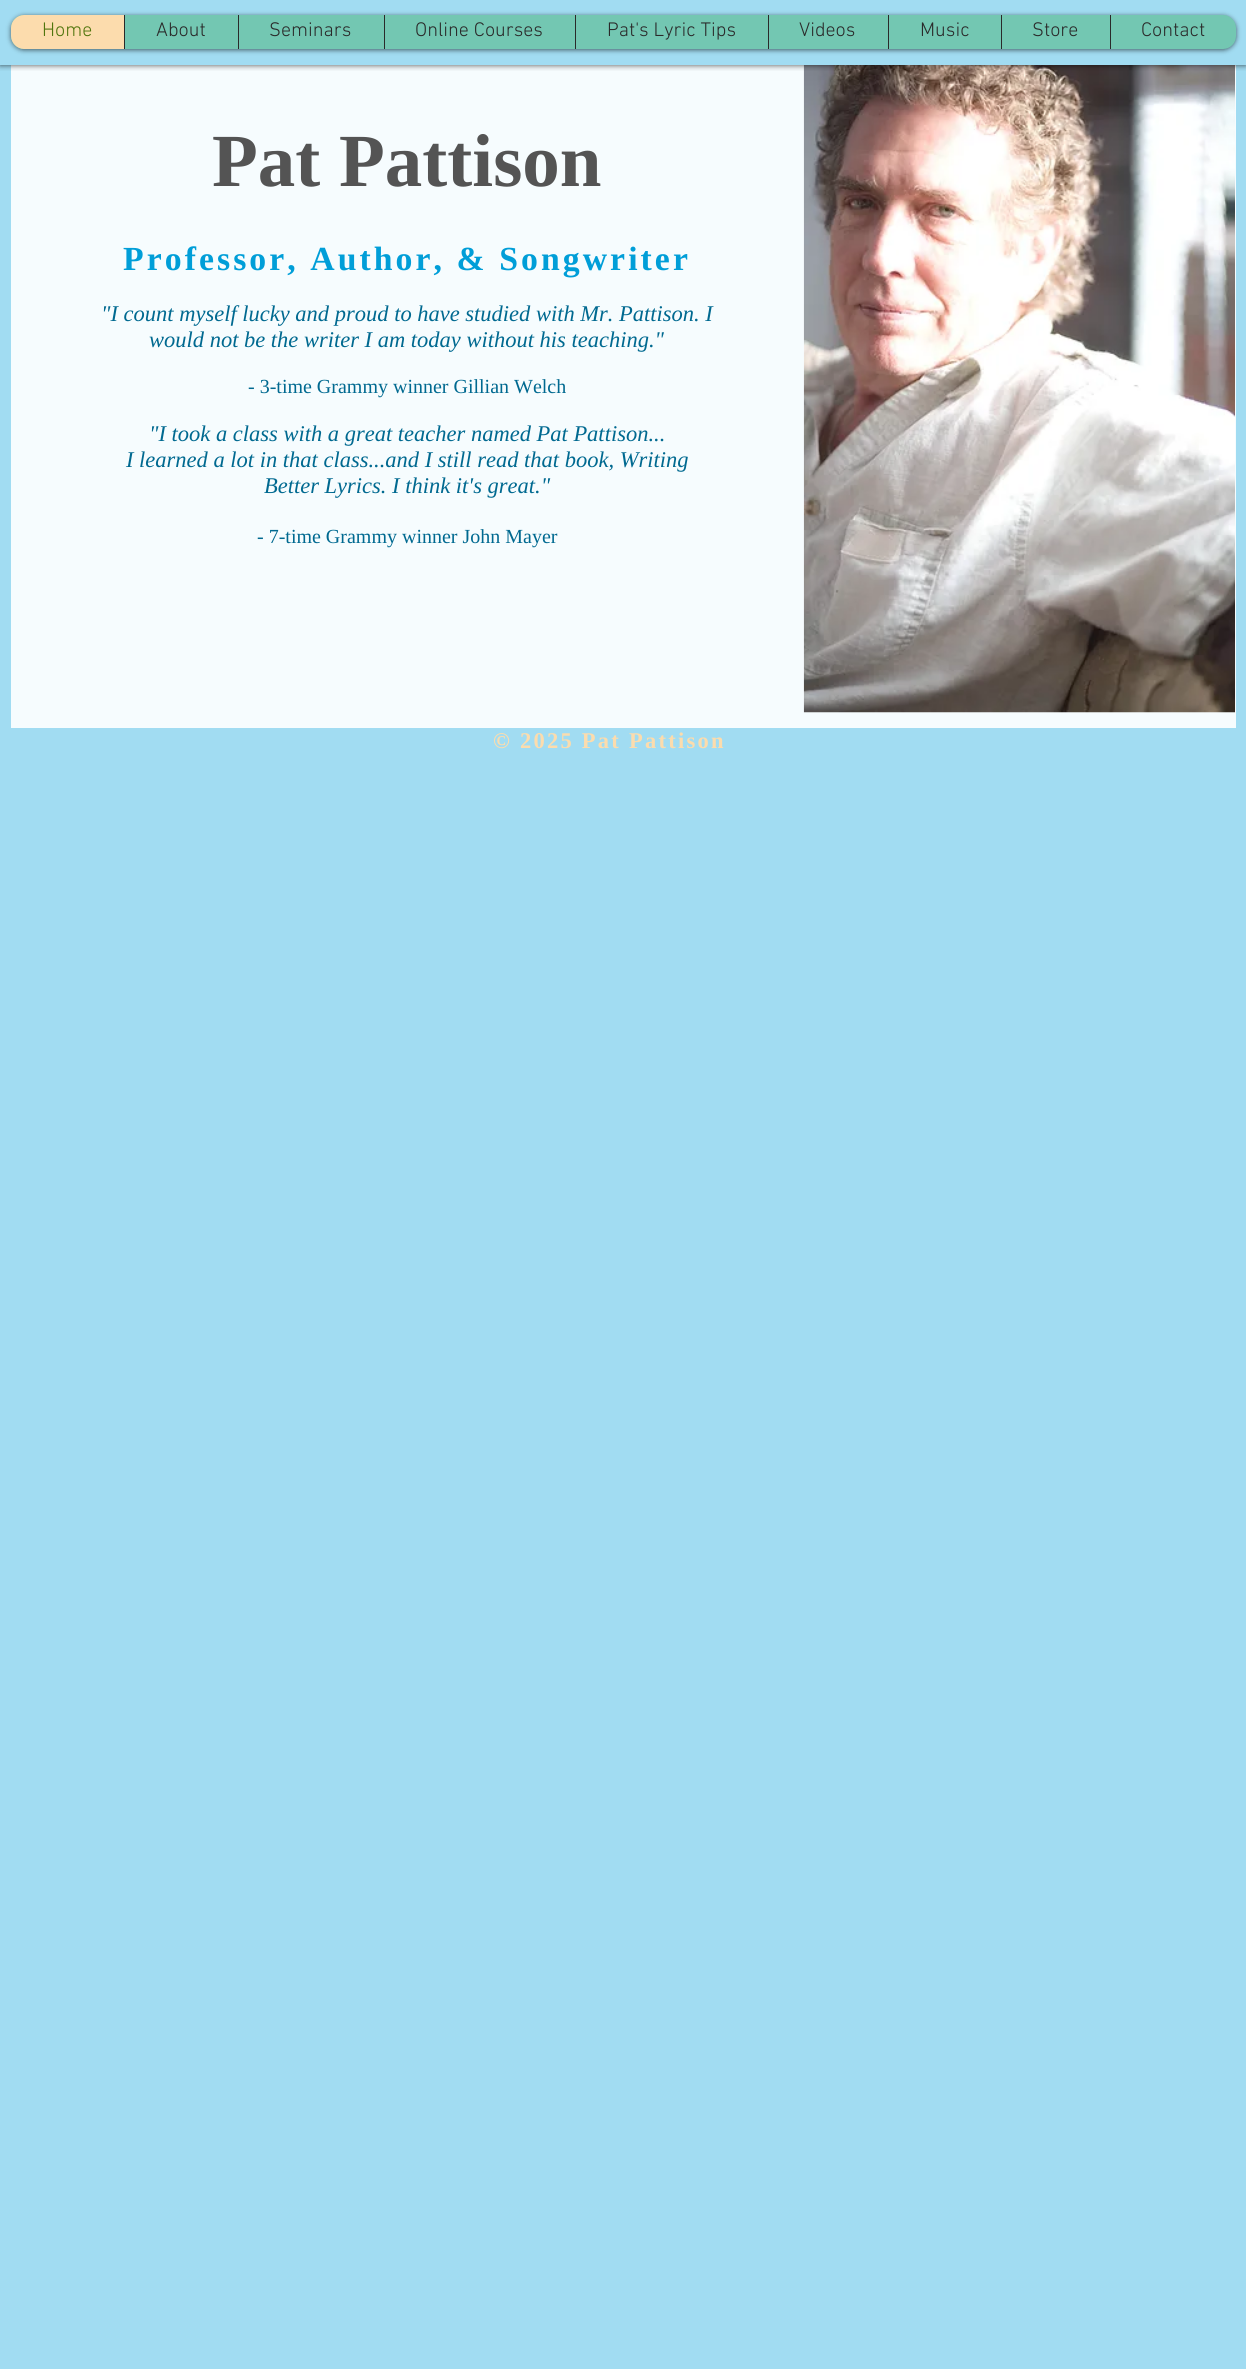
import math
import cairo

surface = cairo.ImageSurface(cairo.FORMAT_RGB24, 1246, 2369)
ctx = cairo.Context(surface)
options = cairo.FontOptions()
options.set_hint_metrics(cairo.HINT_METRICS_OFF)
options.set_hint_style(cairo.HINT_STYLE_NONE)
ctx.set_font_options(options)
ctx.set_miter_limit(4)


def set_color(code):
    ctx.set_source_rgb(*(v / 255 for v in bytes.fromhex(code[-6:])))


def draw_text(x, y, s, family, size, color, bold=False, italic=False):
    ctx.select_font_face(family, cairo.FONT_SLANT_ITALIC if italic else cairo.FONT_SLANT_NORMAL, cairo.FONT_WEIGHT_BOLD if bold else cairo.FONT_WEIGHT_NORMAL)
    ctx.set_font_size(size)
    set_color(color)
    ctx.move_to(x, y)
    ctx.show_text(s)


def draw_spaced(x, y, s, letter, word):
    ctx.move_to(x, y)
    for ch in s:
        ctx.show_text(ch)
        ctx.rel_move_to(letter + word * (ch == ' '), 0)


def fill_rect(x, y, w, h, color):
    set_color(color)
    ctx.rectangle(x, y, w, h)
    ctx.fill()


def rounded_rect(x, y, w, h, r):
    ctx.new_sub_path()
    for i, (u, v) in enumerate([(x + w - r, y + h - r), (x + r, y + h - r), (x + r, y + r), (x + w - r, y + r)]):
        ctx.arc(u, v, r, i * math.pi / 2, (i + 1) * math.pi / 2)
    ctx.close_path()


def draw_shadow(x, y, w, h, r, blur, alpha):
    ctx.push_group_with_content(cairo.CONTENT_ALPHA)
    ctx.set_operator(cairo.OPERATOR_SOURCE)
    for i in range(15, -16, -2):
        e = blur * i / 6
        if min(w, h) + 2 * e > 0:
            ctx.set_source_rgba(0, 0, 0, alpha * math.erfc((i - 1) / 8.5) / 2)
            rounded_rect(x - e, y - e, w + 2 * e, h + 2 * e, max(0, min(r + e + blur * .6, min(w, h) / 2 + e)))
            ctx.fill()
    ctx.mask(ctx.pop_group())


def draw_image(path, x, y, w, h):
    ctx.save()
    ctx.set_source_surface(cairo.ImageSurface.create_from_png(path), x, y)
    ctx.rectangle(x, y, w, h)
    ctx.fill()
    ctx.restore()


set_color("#a1dcf2")
ctx.paint()
fill_rect(11, 65, 1225, 663, "#f6fcfe")
draw_image("assets/img1.png", 803, 65, 432, 648)
ctx.save()
ctx.rectangle(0, 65, 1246, 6)
ctx.clip()
set_color("#000000")
draw_shadow(0, 0, 1246, 65, 0, 3, 0.7)
ctx.restore()
set_color("#000000")
draw_shadow(11, 16, 1225, 34, 13, 2.5, 0.6)
set_color("#73c7b2")
rounded_rect(11, 15, 1225, 34, 13)
ctx.fill()
set_color("#fcdcad")
ctx.new_path()
ctx.move_to(24, 15)
ctx.line_to(124, 15)
ctx.line_to(124, 49)
ctx.line_to(24, 49)
ctx.curve_to(17, 49, 11, 43, 11, 36)
ctx.line_to(11, 28)
ctx.curve_to(11, 21, 17, 15, 24, 15)
ctx.close_path()
ctx.fill()
draw_text(42, 36, "Home", "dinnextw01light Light", 20, "#50750c")
fill_rect(124, 15, 1, 34, "#2a2a2a")
draw_text(156, 36, "About", "dinnextw01light Light", 20, "#2a2a2a")
fill_rect(238, 15, 1, 34, "#2a2a2a")
draw_text(269, 36, "Seminars", "dinnextw01light Light", 20, "#2a2a2a")
fill_rect(384, 15, 1, 34, "#2a2a2a")
draw_text(415, 36, "Online Courses", "dinnextw01light Light", 20, "#2a2a2a")
fill_rect(575, 15, 1, 34, "#2a2a2a")
draw_text(607, 36, "Pat's Lyric Tips", "dinnextw01light Light", 20, "#2a2a2a")
fill_rect(768, 15, 1, 34, "#2a2a2a")
draw_text(799, 36, "Videos", "dinnextw01light Light", 20, "#2a2a2a")
fill_rect(888, 15, 1, 34, "#2a2a2a")
draw_text(920, 36, "Music", "dinnextw01light Light", 20, "#2a2a2a")
fill_rect(1001, 15, 1, 34, "#2a2a2a")
draw_text(1032, 36, "Store", "dinnextw01light Light", 20, "#2a2a2a")
fill_rect(1110, 15, 1, 34, "#2a2a2a")
draw_text(1141, 36, "Contact", "dinnextw01light Light", 20, "#2a2a2a")
draw_text(212, 186, "Pat Pattison", "Liberation Serif", 75, "#545454", bold=True)
ctx.set_font_size(33.75)
set_color("#009ed8")
draw_spaced(123, 270, "Professor, Author, & Songwriter", 3.05, 0)
draw_text(101, 321, "\"I count myself lucky and proud to have studied with Mr. Pattison. I", "Liberation Serif", 22.5, "#006990", italic=True)
draw_text(149, 347, "would not be the writer I am today without his teaching.\"", "Liberation Serif", 22.5, "#006990", italic=True)
draw_text(248, 393, "- 3-time Grammy winner Gillian Welch", "Liberation Serif", 20, "#006990")
draw_text(149, 441, "\"I took a class with a great teacher named Pat Pattison...", "Liberation Serif", 22.5, "#006990", italic=True)
draw_text(126, 467, "I learned a lot in that class...and I still read that book, Writing", "Liberation Serif", 22.5, "#006990", italic=True)
draw_text(264, 493, "Better Lyrics. I think it's great.\"", "Liberation Serif", 22.5, "#006990", italic=True)
draw_text(257, 543, "- 7-time Grammy winner John Mayer", "Liberation Serif", 20, "#006990")
ctx.select_font_face("Liberation Serif", cairo.FONT_SLANT_NORMAL, cairo.FONT_WEIGHT_BOLD)
ctx.set_font_size(22.5)
set_color("#fcdcad")
draw_spaced(493, 748, "© 2025 Pat Pattison", 2.25, 0)
surface.write_to_png("output.png")
